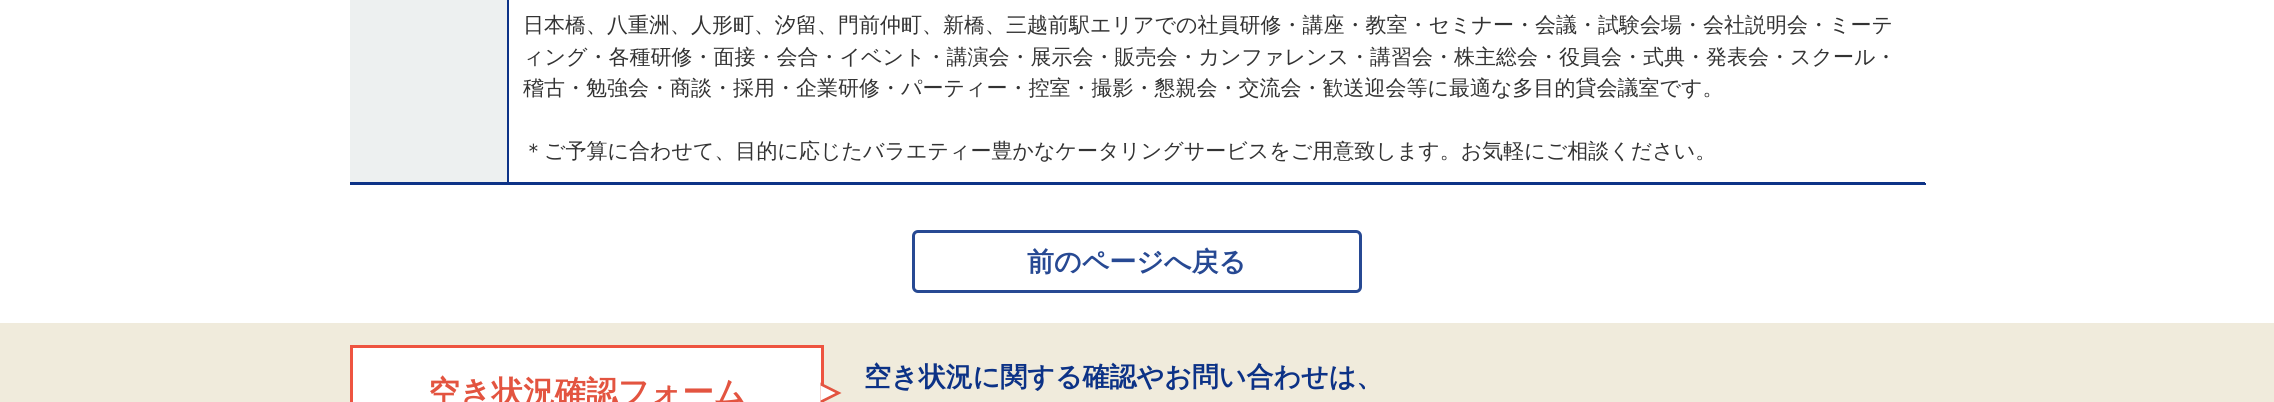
import math
import cairo

surface = cairo.ImageSurface(cairo.FORMAT_RGB24, 2274, 402)
ctx = cairo.Context(surface)
options = cairo.FontOptions()
options.set_hint_metrics(cairo.HINT_METRICS_OFF)
options.set_hint_style(cairo.HINT_STYLE_NONE)
ctx.set_font_options(options)
ctx.set_miter_limit(4)


def set_color(code):
    ctx.set_source_rgb(*(v / 255 for v in bytes.fromhex(code[-6:])))


def draw_text(x, y, s, family, size, color, bold=False, italic=False):
    ctx.select_font_face(family, cairo.FONT_SLANT_ITALIC if italic else cairo.FONT_SLANT_NORMAL, cairo.FONT_WEIGHT_BOLD if bold else cairo.FONT_WEIGHT_NORMAL)
    ctx.set_font_size(size)
    set_color(color)
    ctx.move_to(x, y)
    ctx.show_text(s)


def fill_rect(x, y, w, h, color):
    set_color(color)
    ctx.rectangle(x, y, w, h)
    ctx.fill()


def rounded_rect(x, y, w, h, r):
    ctx.new_sub_path()
    for i, (u, v) in enumerate([(x + w - r, y + h - r), (x + r, y + h - r), (x + r, y + r), (x + w - r, y + r)]):
        ctx.arc(u, v, r, i * math.pi / 2, (i + 1) * math.pi / 2)
    ctx.close_path()


set_color("#ffffff")
ctx.paint()
fill_rect(507, 0, 2, 185, "#0d3387")
fill_rect(350, 182, 1575, 3, "#0d3387")
fill_rect(350, 0, 157, 182, "#edf0f0")
fill_rect(1925, 183, 1, 2, "#0d3387")
draw_text(523, 32, "日本橋、八重洲、人形町、汐留、門前仲町、新橋、三越前駅エリアでの社員研修・講座・教室・セミナー・会議・試験会場・会社説明会・ミーテ", "WenQuanYi Zen Hei Medium", 21, "#333333")
draw_text(523, 64, "ィング・各種研修・面接・会合・イベント・講演会・展示会・販売会・カンファレンス・講習会・株主総会・役員会・式典・発表会・スクール・", "WenQuanYi Zen Hei Medium", 21, "#333333")
draw_text(523, 95, "稽古・勉強会・商談・採用・企業研修・パーティー・控室・撮影・懇親会・交流会・歓送迎会等に最適な多目的貸会議室です。", "WenQuanYi Zen Hei Medium", 21, "#333333")
draw_text(523, 158, "＊ご予算に合わせて、目的に応じたバラエティー豊かなケータリングサービスをご用意致します。お気軽にご相談ください。", "WenQuanYi Zen Hei Medium", 21, "#333333")
rounded_rect(913.5, 231.5, 447, 60, 4.5)
set_color("#274993")
ctx.set_line_width(3)
ctx.stroke()
draw_text(1027, 271, "前のページへ戻る", "WenQuanYi Zen Hei", 27, "#274993", bold=True)
fill_rect(0, 323, 2274, 79, "#f0ebdc")
set_color("#ffffff")
ctx.rectangle(351.5, 346.5, 471, 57)
ctx.fill_preserve()
set_color("#ee5440")
ctx.stroke()
draw_text(428, 403, "空き状況確認フォーム", "WenQuanYi Zen Hei", 31.5, "#e35440", bold=True)
ctx.new_path()
ctx.move_to(820.5, 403.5)
ctx.line_to(820.5, 382.5)
ctx.line_to(841.5, 393)
ctx.close_path()
ctx.fill()
set_color("#ffffff")
ctx.new_path()
ctx.move_to(820.5, 400.5)
ctx.line_to(820.5, 385.5)
ctx.line_to(835.5, 393)
ctx.close_path()
ctx.fill()
draw_text(864, 386, "空き状況に関する確認やお問い合わせは、", "WenQuanYi Zen Hei", 27, "#0c3286", bold=True)
surface.write_to_png("output.png")
